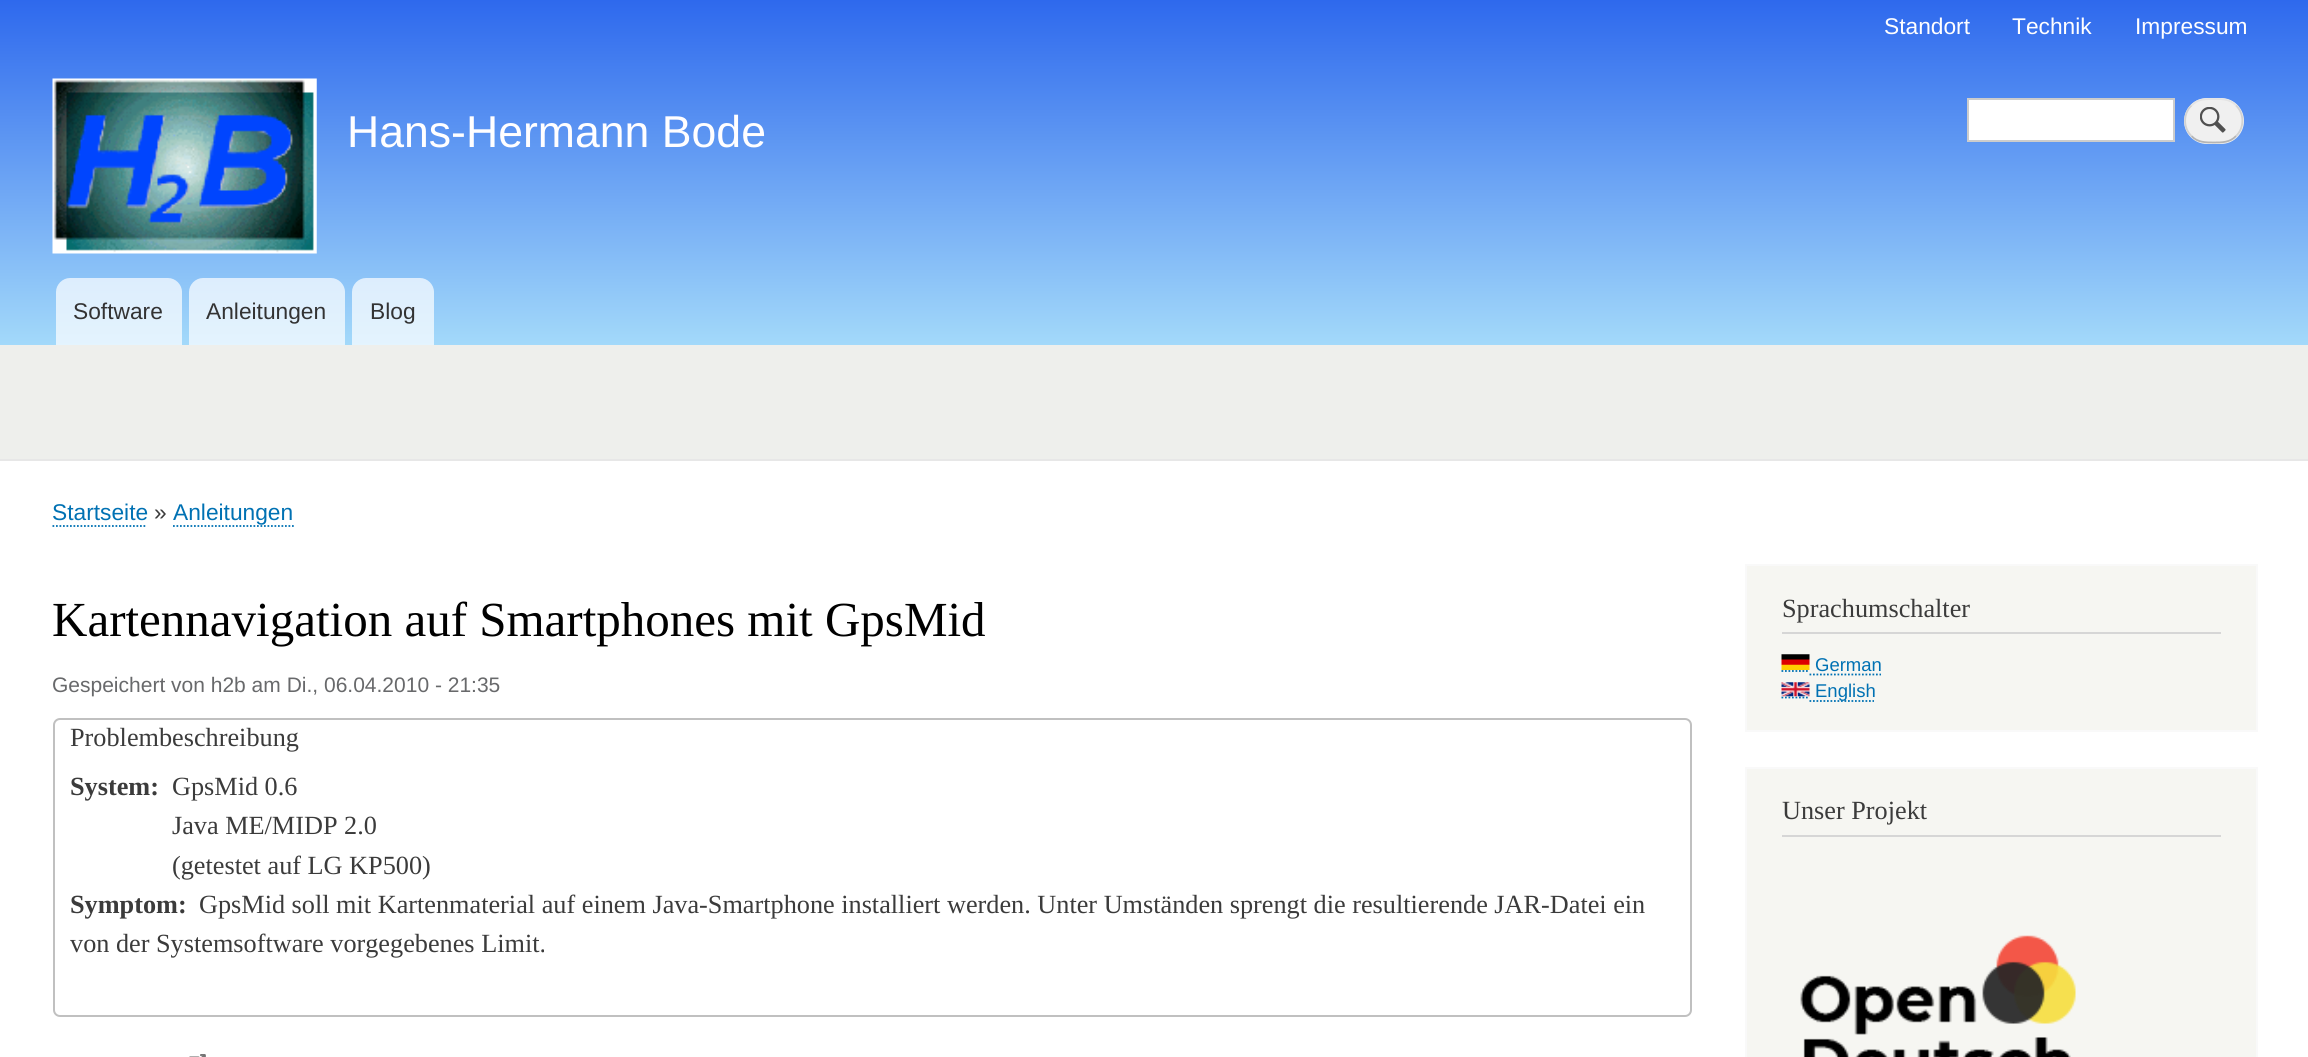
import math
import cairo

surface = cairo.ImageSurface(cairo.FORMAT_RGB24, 2308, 1057)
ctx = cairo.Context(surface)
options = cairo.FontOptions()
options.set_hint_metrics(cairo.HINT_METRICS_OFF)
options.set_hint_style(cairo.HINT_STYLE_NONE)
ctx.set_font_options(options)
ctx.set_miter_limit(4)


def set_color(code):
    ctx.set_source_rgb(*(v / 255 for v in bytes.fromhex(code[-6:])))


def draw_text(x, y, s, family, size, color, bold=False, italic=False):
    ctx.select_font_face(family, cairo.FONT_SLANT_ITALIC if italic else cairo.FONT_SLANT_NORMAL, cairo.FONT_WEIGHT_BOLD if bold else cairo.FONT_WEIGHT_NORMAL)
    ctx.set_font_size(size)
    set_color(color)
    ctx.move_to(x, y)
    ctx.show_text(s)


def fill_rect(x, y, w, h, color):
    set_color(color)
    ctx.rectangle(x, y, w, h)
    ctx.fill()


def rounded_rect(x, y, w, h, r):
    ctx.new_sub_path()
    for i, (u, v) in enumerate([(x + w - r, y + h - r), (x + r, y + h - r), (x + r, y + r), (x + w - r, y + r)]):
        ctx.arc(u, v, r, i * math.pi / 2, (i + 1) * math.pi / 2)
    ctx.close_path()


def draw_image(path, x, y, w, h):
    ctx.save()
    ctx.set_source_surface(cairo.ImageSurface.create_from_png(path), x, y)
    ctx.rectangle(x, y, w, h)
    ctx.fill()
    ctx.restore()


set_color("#ffffff")
ctx.paint()
gradient = cairo.LinearGradient(1154, -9, 1154, 345)
gradient.add_color_stop_rgba(0, 0.169, 0.4, 0.929, 1)
gradient.add_color_stop_rgba(1, 0.639, 0.851, 0.98, 1)
ctx.set_source(gradient)
ctx.rectangle(0, 0, 2308, 345)
ctx.fill()
draw_text(1884, 34, "Standort", "Liberation Sans", 22.75, "#fffeff")
draw_text(2012, 34, "Technik", "Liberation Sans", 22.75, "#fffeff")
draw_text(2135, 34, "Impressum", "Liberation Sans", 22.75, "#fffeff")
draw_image("assets/img1.png", 52, 78, 265, 176)
draw_text(347, 147, "Hans-Hermann Bode", "Liberation Sans", 44.6, "#fffeff")
set_color("#ffffff")
ctx.rectangle(1968, 99, 206, 42)
ctx.fill_preserve()
set_color("#cccccc")
ctx.stroke()
set_color("#f0f0f0")
rounded_rect(2184, 98, 60, 46, 23)
ctx.fill()
draw_image("assets/img2.png", 2200, 107, 26, 26)
ctx.new_path()
ctx.move_to(2191.5, 105.5)
ctx.curve_to(2197.5, 99, 2205.5, 99, 2214, 99)
ctx.curve_to(2222, 99, 2230, 99, 2236, 105.5)
set_color("#e4e4e4")
ctx.set_line_width(1.8)
ctx.stroke()
ctx.new_path()
ctx.move_to(2236, 105.5)
ctx.curve_to(2244.5, 113.5, 2244.5, 128, 2236, 136)
set_color("#d2d2d2")
ctx.stroke()
ctx.new_path()
ctx.move_to(2236, 136)
ctx.curve_to(2230, 142.5, 2222, 142.5, 2214, 142.5)
ctx.curve_to(2205.5, 142.5, 2197.5, 142.5, 2191.5, 136)
set_color("#b4b4b4")
ctx.stroke()
ctx.new_path()
ctx.move_to(2191.5, 136)
ctx.curve_to(2183, 128, 2183, 113.5, 2191.5, 105.5)
set_color("#d2d2d2")
ctx.stroke()
ctx.set_source_rgba(1, 1, 1, 0.7)
ctx.new_path()
ctx.move_to(70, 278)
ctx.line_to(168, 278)
ctx.curve_to(175.5, 278, 182, 284.5, 182, 292)
ctx.line_to(182, 345)
ctx.line_to(56, 345)
ctx.line_to(56, 292)
ctx.curve_to(56, 284.5, 62.5, 278, 70, 278)
ctx.close_path()
ctx.fill()
draw_text(73, 319, "Software", "Liberation Sans", 22.75, "#333333")
ctx.set_source_rgba(1, 1, 1, 0.7)
ctx.new_path()
ctx.move_to(203, 278)
ctx.line_to(331, 278)
ctx.curve_to(338.5, 278, 345, 284.5, 345, 292)
ctx.line_to(345, 345)
ctx.line_to(189, 345)
ctx.line_to(189, 292)
ctx.curve_to(189, 284.5, 195.5, 278, 203, 278)
ctx.close_path()
ctx.fill()
draw_text(206, 319, "Anleitungen", "Liberation Sans", 22.75, "#333333")
ctx.set_source_rgba(1, 1, 1, 0.7)
ctx.new_path()
ctx.move_to(366, 278)
ctx.line_to(420, 278)
ctx.curve_to(427.5, 278, 434, 284.5, 434, 292)
ctx.line_to(434, 345)
ctx.line_to(352, 345)
ctx.line_to(352, 292)
ctx.curve_to(352, 284.5, 358.5, 278, 366, 278)
ctx.close_path()
ctx.fill()
draw_text(370, 319, "Blog", "Liberation Sans", 22.75, "#333333")
fill_rect(0, 345, 2308, 114, "#eeefec")
fill_rect(0, 459, 2308, 2, "#e7e7e7")
draw_text(52, 520, "Startseite", "Liberation Sans", 22.75, "#0071b3")
ctx.new_path()
ctx.move_to(52.5, 526)
ctx.line_to(147, 526)
ctx.set_dash([1.75, 1.75])
ctx.stroke()
draw_text(154, 520, "»", "Liberation Sans", 22.75, "#3b3b3b")
draw_text(173, 520, "Anleitungen", "Liberation Sans", 22.75, "#0071b3")
ctx.new_path()
ctx.move_to(173, 526)
ctx.line_to(294, 526)
ctx.stroke()
draw_text(52, 636, "Kartennavigation auf Smartphones mit GpsMid", "Liberation Serif", 49, "#000000")
draw_text(52, 692, "Gespeichert von h2b am Di., 06.04.2010 - 21:35", "Liberation Sans", 21, "#68696b")
rounded_rect(54, 719, 1637, 297, 6)
set_color("#c0c0c0")
ctx.set_line_width(2)
ctx.set_dash([])
ctx.stroke()
draw_text(70, 746, "Problembeschreibung", "Liberation Serif", 26.25, "#3b3b3b")
draw_text(70, 795, "System:", "Liberation Serif", 26.25, "#3b3b3b", bold=True)
draw_text(172, 795, "GpsMid 0.6", "Liberation Serif", 26.25, "#3b3b3b")
draw_text(172, 834, "Java ME/MIDP 2.0", "Liberation Serif", 26.25, "#3b3b3b")
draw_text(172, 874, "(getestet auf LG KP500)", "Liberation Serif", 26.25, "#3b3b3b")
draw_text(199, 913, "GpsMid soll mit Kartenmaterial auf einem Java-Smartphone installiert werden. Unter Umständen sprengt die resultierende JAR-Datei ein", "Liberation Serif", 26.25, "#3b3b3b")
draw_text(70, 952, "von der Systemsoftware vorgegebenes Limit.", "Liberation Serif", 26.25, "#3b3b3b")
draw_text(70, 913, "Symptom:", "Liberation Serif", 26.25, "#3b3b3b", bold=True)
draw_image("assets/img3.png", 189, 1054, 17, 3)
set_color("#f6f6f2")
ctx.rectangle(1746, 565, 511, 166)
ctx.fill_preserve()
set_color("#f9f9f9")
ctx.stroke()
fill_rect(1782, 632, 439, 2, "#d6d6d6")
draw_text(1782, 617, "Sprachumschalter", "Liberation Serif", 26.25, "#3b3b3b")
draw_image("assets/img4.png", 1781, 654, 29, 16)
draw_text(1815, 671, "German", "Liberation Sans", 18.5, "#0071b3")
ctx.new_path()
ctx.move_to(1781.5, 671)
ctx.line_to(1809.5, 671)
ctx.set_line_width(1.8)
ctx.set_dash([1.75, 1.75])
ctx.stroke()
ctx.new_path()
ctx.move_to(1809.5, 674.5)
ctx.line_to(1881, 674.5)
ctx.stroke()
ctx.new_path()
ctx.move_to(1781.5, 697.5)
ctx.line_to(1809.5, 697.5)
ctx.stroke()
draw_image("assets/img5.png", 1781, 682, 29, 15)
ctx.new_path()
ctx.move_to(1809.5, 701)
ctx.line_to(1874, 701)
ctx.stroke()
draw_text(1815, 697, "English", "Liberation Sans", 18.5, "#0071b3")
set_color("#f6f6f2")
ctx.rectangle(1746, 768, 511, 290)
ctx.fill_preserve()
set_color("#f9f9f9")
ctx.set_line_width(2)
ctx.set_dash([])
ctx.stroke()
fill_rect(1782, 835, 439, 2, "#d6d6d6")
draw_text(1782, 819, "Unser Projekt", "Liberation Serif", 26.25, "#3b3b3b")
draw_image("assets/img6.png", 1800, 935, 276, 122)
surface.write_to_png("output.png")
